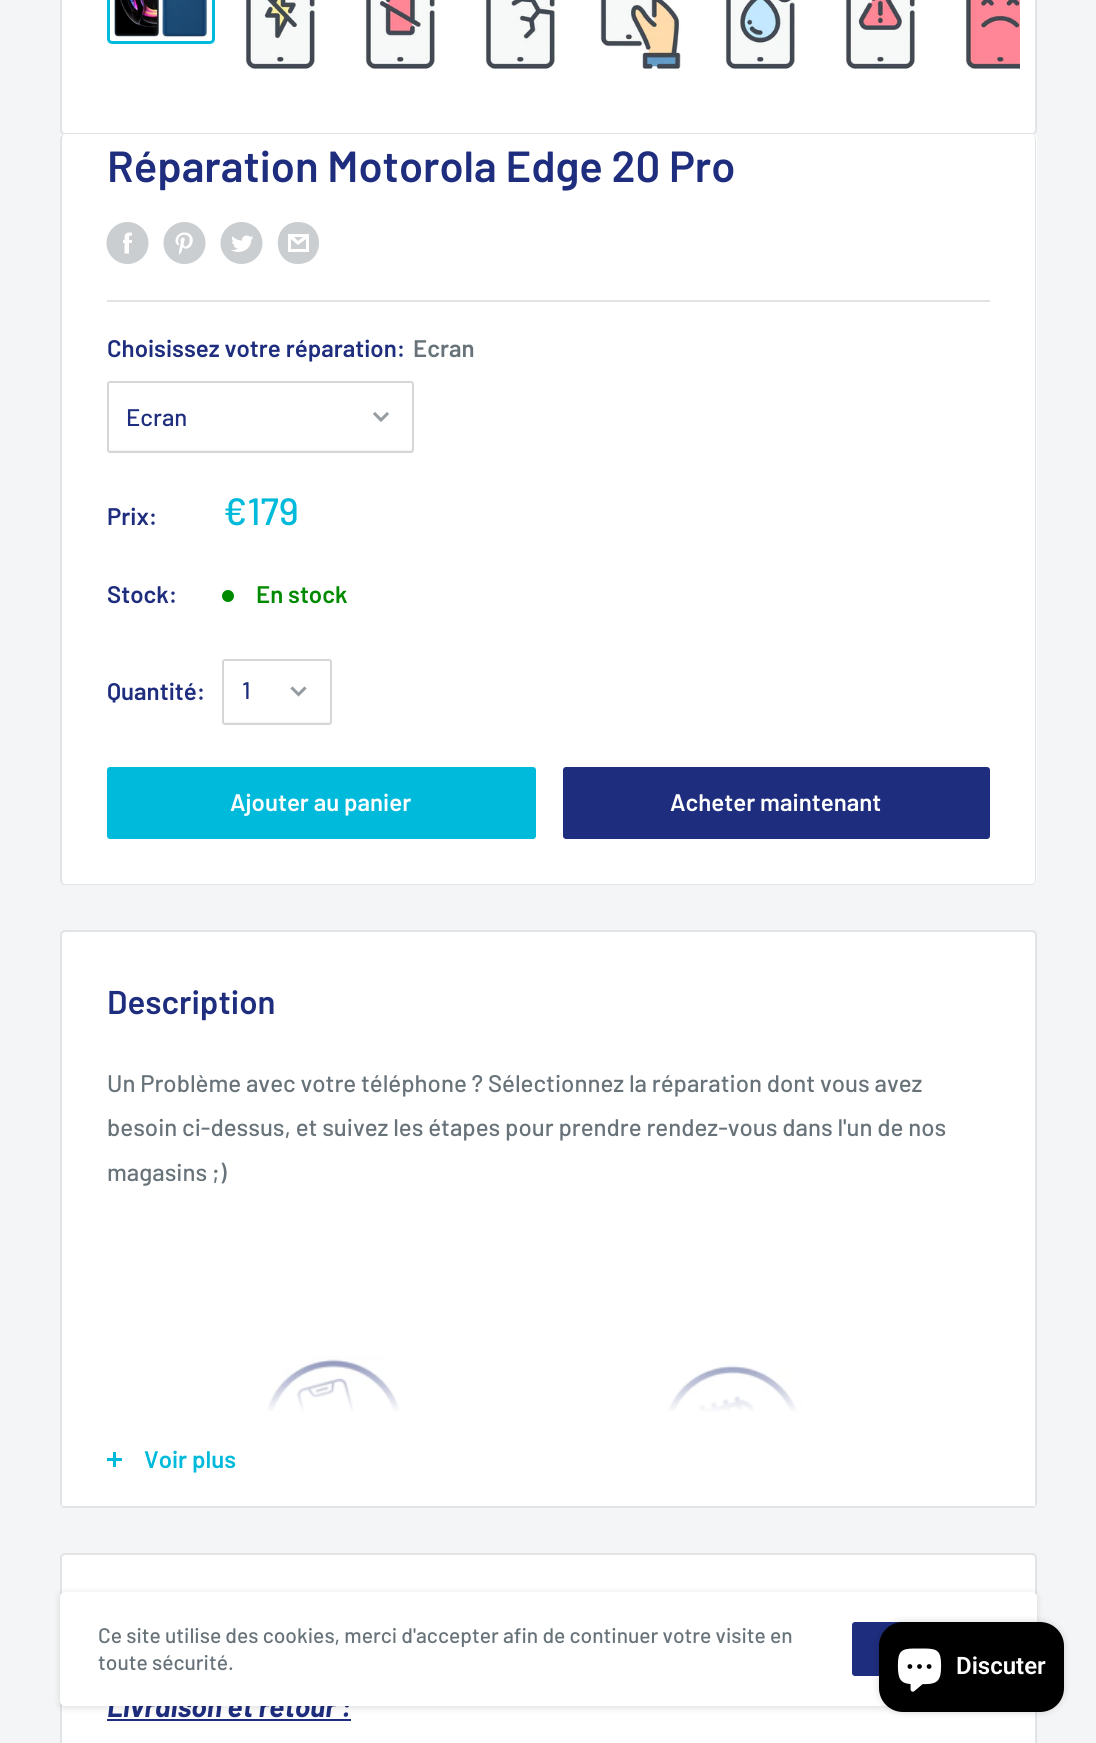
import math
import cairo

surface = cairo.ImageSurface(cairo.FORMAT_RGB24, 1096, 1743)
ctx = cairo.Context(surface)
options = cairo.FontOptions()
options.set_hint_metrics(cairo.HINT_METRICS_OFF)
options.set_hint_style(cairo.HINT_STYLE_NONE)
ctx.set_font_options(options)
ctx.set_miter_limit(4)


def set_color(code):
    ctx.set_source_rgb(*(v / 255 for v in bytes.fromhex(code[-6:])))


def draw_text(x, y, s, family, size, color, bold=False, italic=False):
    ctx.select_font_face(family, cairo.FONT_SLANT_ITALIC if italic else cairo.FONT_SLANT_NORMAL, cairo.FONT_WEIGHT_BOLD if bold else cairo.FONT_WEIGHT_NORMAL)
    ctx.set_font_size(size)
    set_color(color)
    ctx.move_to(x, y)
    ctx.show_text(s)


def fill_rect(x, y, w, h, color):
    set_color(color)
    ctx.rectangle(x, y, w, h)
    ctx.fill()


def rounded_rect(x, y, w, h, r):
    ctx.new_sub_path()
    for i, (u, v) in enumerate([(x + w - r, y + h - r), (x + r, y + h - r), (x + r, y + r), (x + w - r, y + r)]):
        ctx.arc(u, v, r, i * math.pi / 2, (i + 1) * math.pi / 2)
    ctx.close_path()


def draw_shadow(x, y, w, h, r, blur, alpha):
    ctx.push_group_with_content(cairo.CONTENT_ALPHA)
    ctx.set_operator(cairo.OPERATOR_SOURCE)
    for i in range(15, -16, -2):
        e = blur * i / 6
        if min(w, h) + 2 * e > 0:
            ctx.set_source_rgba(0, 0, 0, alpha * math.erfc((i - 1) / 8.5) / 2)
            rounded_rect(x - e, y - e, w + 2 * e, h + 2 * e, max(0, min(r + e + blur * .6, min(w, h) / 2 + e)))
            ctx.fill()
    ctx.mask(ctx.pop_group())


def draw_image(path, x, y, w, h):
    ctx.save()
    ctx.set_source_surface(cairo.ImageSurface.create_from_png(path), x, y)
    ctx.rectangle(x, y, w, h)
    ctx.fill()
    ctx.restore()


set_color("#f3f5f6")
ctx.paint()
set_color("#ffffff")
rounded_rect(61, -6, 975, 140, 4)
ctx.fill_preserve()
set_color("#e1e3e4")
ctx.stroke()
rounded_rect(108.5, -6.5, 105, 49, 3.5)
set_color("#00badb")
ctx.set_line_width(3)
ctx.stroke()
draw_image("assets/img1.png", 114, 0, 93, 37)
draw_image("assets/img2.png", 245, 0, 70, 69)
draw_image("assets/img3.png", 365, 0, 70, 69)
draw_image("assets/img4.png", 484, 0, 71, 71)
draw_image("assets/img5.png", 600, 0, 81, 71)
draw_image("assets/img6.png", 724, 0, 71, 69)
draw_image("assets/img7.png", 845, 0, 70, 69)
draw_image("assets/img8.png", 965, 0, 55, 69)
set_color("#ffffff")
ctx.new_path()
ctx.move_to(65, 134)
ctx.curve_to(62, 134, 60, 137, 60, 140)
ctx.curve_to(60, 137, 62, 135, 64, 135)
ctx.line_to(1032, 135)
ctx.curve_to(1034, 135, 1036, 137, 1036, 140)
ctx.line_to(1036, 881)
ctx.line_to(1037, 879)
ctx.line_to(1037, 139)
ctx.curve_to(1037, 136, 1035, 134, 1032, 134)
ctx.close_path()
ctx.fill()
rounded_rect(60, 135, 977, 750, 5)
ctx.fill()
set_color("#e1e3e4")
ctx.set_fill_rule(cairo.FILL_RULE_EVEN_ODD)
ctx.new_path()
ctx.move_to(64, 135)
ctx.line_to(1032, 135)
ctx.curve_to(1034, 135, 1036, 137, 1036, 140)
ctx.line_to(1036, 880)
ctx.curve_to(1036, 883, 1034, 885, 1032, 885)
ctx.line_to(64, 885)
ctx.curve_to(62, 885, 60, 883, 60, 880)
ctx.line_to(60, 140)
ctx.curve_to(60, 137, 62, 135, 64, 135)
ctx.close_path()
ctx.move_to(64, 135)
ctx.line_to(1032, 135)
ctx.curve_to(1034, 135, 1035, 137, 1035, 140)
ctx.line_to(1035, 880)
ctx.curve_to(1035, 882, 1034, 884, 1032, 884)
ctx.line_to(64, 884)
ctx.curve_to(63, 884, 62, 882, 62, 880)
ctx.line_to(62, 140)
ctx.curve_to(62, 137, 63, 135, 64, 135)
ctx.close_path()
ctx.fill()
draw_text(107, 182, "Réparation Motorola Edge 20 Pro", "Barlow SemiBold", 43.5, "#1e2d7d")
draw_image("assets/img9.png", 106, 222, 43, 42)
draw_image("assets/img10.png", 163, 222, 43, 42)
draw_image("assets/img11.png", 220, 222, 43, 42)
set_color("#caced0")
ctx.set_fill_rule(cairo.FILL_RULE_WINDING)
ctx.new_path()
ctx.move_to(298, 264)
ctx.curve_to(271, 264, 271, 222, 298, 222)
ctx.curve_to(326, 222, 326, 264, 298, 264)
ctx.close_path()
ctx.move_to(294, 237)
ctx.line_to(303, 237)
ctx.line_to(298, 241)
ctx.close_path()
ctx.move_to(306, 239)
ctx.line_to(306, 249)
ctx.line_to(291, 249)
ctx.line_to(291, 239)
ctx.line_to(298, 245)
ctx.close_path()
ctx.move_to(309, 234)
ctx.line_to(288, 234)
ctx.line_to(288, 252)
ctx.line_to(309, 252)
ctx.close_path()
ctx.fill()
fill_rect(107, 300, 883, 2, "#e1e3e4")
draw_text(107, 357, "Choisissez votre réparation:", "Barlow SemiBold", 24, "#1e2d7d")
draw_text(413, 357, "Ecran", "Barlow SemiBold", 24, "#677279")
set_color("#f2f3f3")
ctx.new_path()
ctx.move_to(108, 448)
ctx.line_to(108, 450)
ctx.curve_to(108, 451, 109, 452, 110, 452)
ctx.line_to(412, 452)
ctx.curve_to(412, 452, 413, 451, 413, 450)
ctx.line_to(413, 384)
ctx.curve_to(413, 384, 413, 383, 412, 383)
ctx.line_to(412, 448)
ctx.line_to(411, 450)
ctx.line_to(110, 450)
ctx.curve_to(109, 450, 108, 449, 108, 448)
ctx.close_path()
ctx.fill()
rounded_rect(108, 382, 305, 70, 2)
set_color("#d4d6d8")
ctx.set_line_width(2)
ctx.stroke()
draw_text(126, 426, "Ecran", "Barlow Medium", 24, "#1e2d7d")
ctx.new_path()
ctx.move_to(387, 414)
ctx.line_to(381, 420)
ctx.line_to(375, 414)
set_color("#959ca1")
ctx.set_line_width(3)
ctx.set_line_cap(cairo.LINE_CAP_SQUARE)
ctx.stroke()
draw_text(107, 525, "Prix:", "Barlow SemiBold", 24, "#1e2d7d")
draw_text(223, 525, "€179", "Barlow Medium", 38, "#00badb")
draw_text(107, 603, "Stock:", "Barlow SemiBold", 24, "#1e2d7d")
set_color("#008a00")
ctx.new_path()
ctx.arc(228, 596, 6, 0, 2 * math.pi)
ctx.fill()
draw_text(256, 603, "En stock", "Barlow SemiBold", 24, "#008a00")
draw_text(107, 700, "Quantité:", "Barlow SemiBold", 24, "#1e2d7d")
set_color("#f2f3f3")
ctx.new_path()
ctx.move_to(224, 721)
ctx.line_to(225, 723)
ctx.line_to(328, 723)
ctx.curve_to(330, 723, 330, 722, 330, 721)
ctx.line_to(328, 722)
ctx.line_to(227, 722)
ctx.close_path()
ctx.fill()
rounded_rect(223, 660, 108, 64, 2)
set_color("#d4d6d8")
ctx.set_line_width(2)
ctx.set_line_cap(cairo.LINE_CAP_BUTT)
ctx.stroke()
draw_text(242, 699, "1", "Barlow Medium", 24, "#1e2d7d")
ctx.new_path()
ctx.move_to(304.5, 688.5)
ctx.line_to(298.5, 694.5)
ctx.line_to(292.5, 688.5)
set_color("#959ca1")
ctx.set_line_width(3)
ctx.set_line_cap(cairo.LINE_CAP_SQUARE)
ctx.stroke()
set_color("#00badb")
rounded_rect(107, 767, 429, 72, 3)
ctx.fill()
draw_text(230, 811, "Ajouter au panier", "Barlow SemiBold", 24, "#ffffff")
set_color("#1e2d7d")
rounded_rect(563, 767, 427, 72, 3)
ctx.fill()
draw_text(670, 811, "Acheter maintenant", "Barlow SemiBold", 24, "#ffffff")
rounded_rect(61, 931, 975, 576, 4)
ctx.fill_preserve()
set_color("#e1e3e4")
ctx.set_line_width(2)
ctx.set_line_cap(cairo.LINE_CAP_BUTT)
ctx.stroke()
draw_text(107, 1014, "Description", "Barlow SemiBold", 33, "#1e2d7d")
draw_text(107, 1092, "Un Problème avec votre téléphone ? Sélectionnez la réparation dont vous avez", "Barlow Medium", 24, "#677279")
draw_text(107, 1136, "besoin ci-dessus, et suivez les étapes pour prendre rendez-vous dans l'un de nos", "Barlow Medium", 24, "#677279")
draw_text(107, 1181, "magasins ;)", "Barlow Medium", 24, "#677279")
draw_image("assets/img12.png", 239, 1356, 564, 56)
fill_rect(62, 1503, 973, 3, "#ffffff")
gradient = cairo.LinearGradient(548, 1338, 548, 1413)
gradient.add_color_stop_rgba(0, 1, 1, 1, 0)
gradient.add_color_stop_rgba(0.15, 1, 1, 1, 0.4)
gradient.add_color_stop_rgba(1, 1, 1, 1, 1)
ctx.set_source(gradient)
ctx.rectangle(262, 1357, 538, 55)
ctx.fill()
fill_rect(113, 1452, 3, 15, "#00badb")
fill_rect(107, 1458, 15, 3, "#00badb")
draw_text(144, 1468, "Voir plus", "Barlow SemiBold", 24, "#00badb")
set_color("#ffffff")
rounded_rect(61, 1554, 975, 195, 4)
ctx.fill_preserve()
set_color("#e1e3e4")
ctx.stroke()
draw_text(107, 1717, "Livraison et retour :", "Barlow", 28.5, "#1e2d7d", bold=True, italic=True)
fill_rect(107, 1719, 244, 2, "#1e2d7d")
set_color("#000000")
draw_shadow(59, 1592, 979, 117, 6, 3, 0.1)
set_color("#ffffff")
rounded_rect(60, 1592, 977, 114, 5)
ctx.fill()
draw_text(98, 1643, "Ce site utilise des cookies, merci d'accepter afin de continuer votre visite en", "Barlow Medium", 21, "#677279")
draw_text(98, 1670, "toute sécurité.", "Barlow Medium", 21, "#677279")
set_color("#1e2d7d")
rounded_rect(852, 1622, 140, 54, 3)
ctx.fill()
set_color("#000000")
draw_shadow(879, 1622, 185, 90, 24, 4, 0.15)
set_color("#000000")
rounded_rect(879, 1622, 185, 90, 24)
ctx.fill()
draw_image("assets/img13.png", 897, 1648, 45, 44)
draw_text(956, 1674, "Discuter", "Roboto SemiBold", 24, "#ffffff")
surface.write_to_png("output.png")
